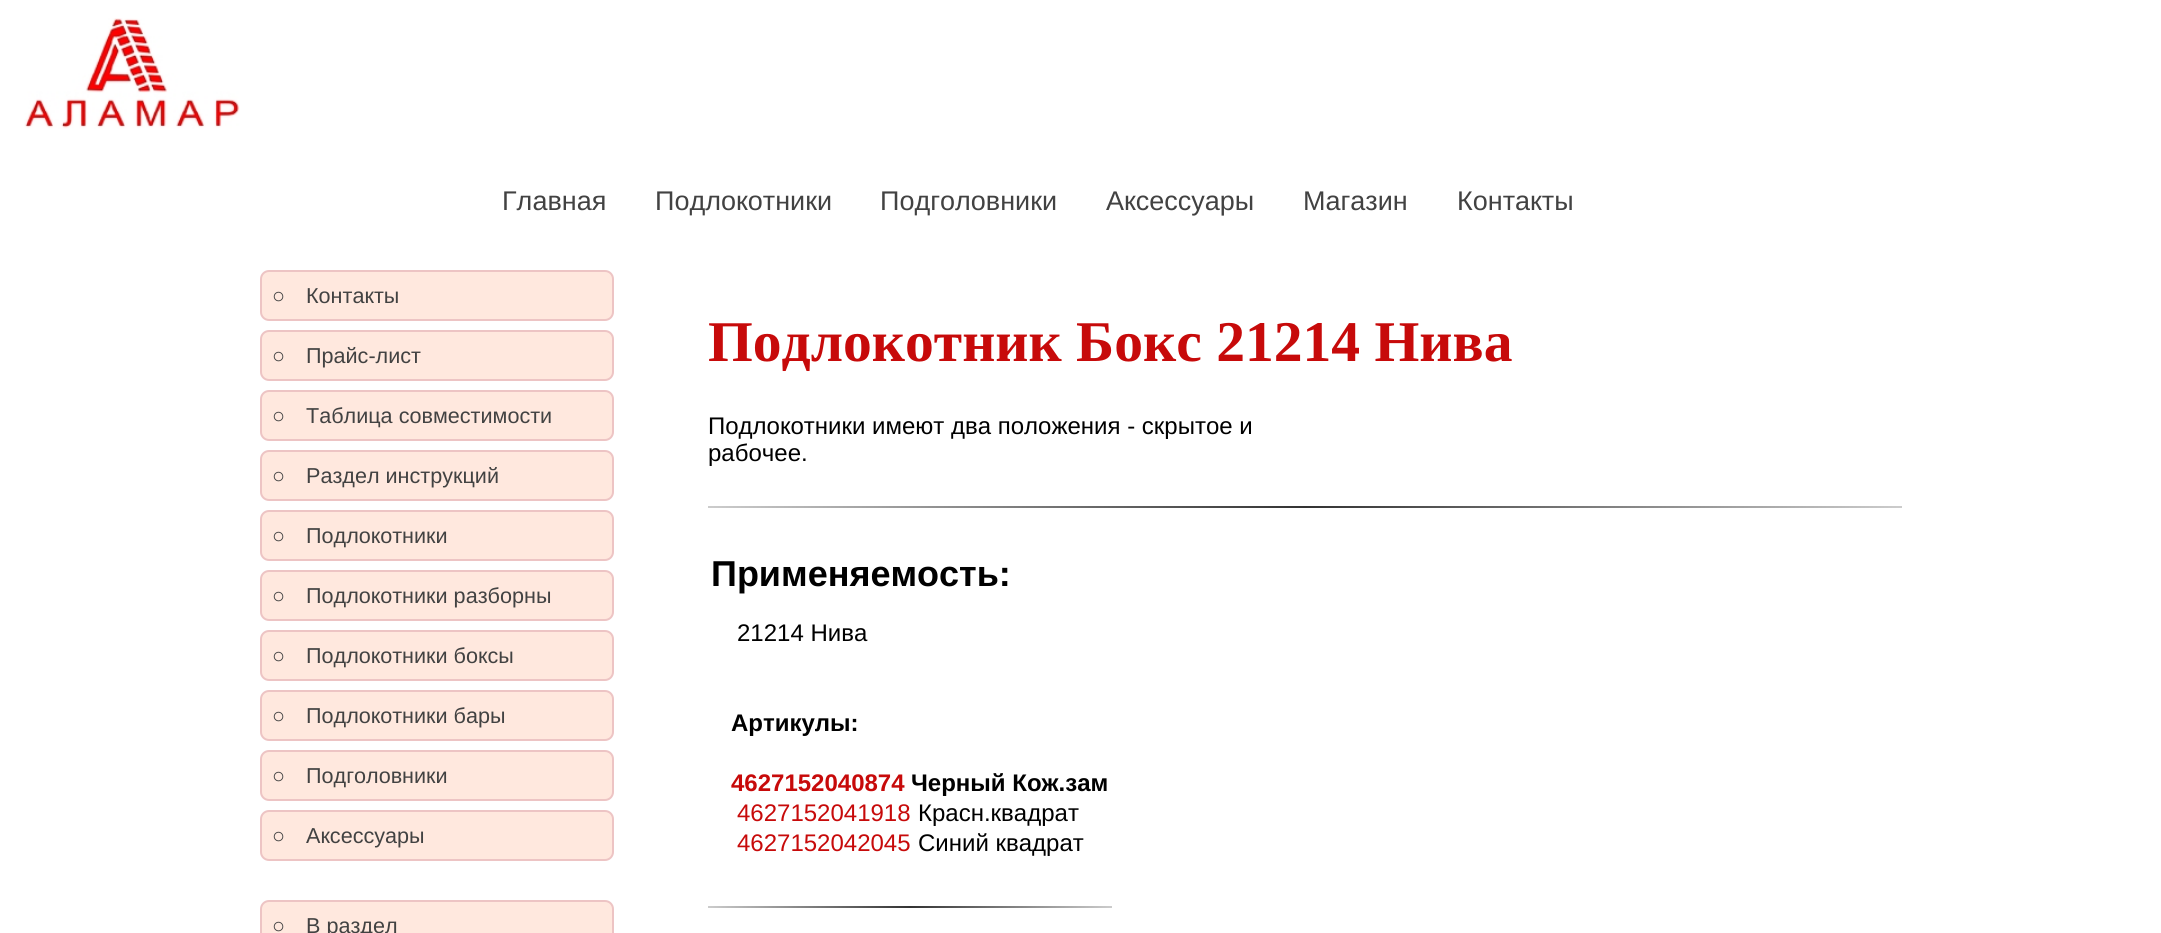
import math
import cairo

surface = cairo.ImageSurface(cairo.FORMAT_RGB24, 2161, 933)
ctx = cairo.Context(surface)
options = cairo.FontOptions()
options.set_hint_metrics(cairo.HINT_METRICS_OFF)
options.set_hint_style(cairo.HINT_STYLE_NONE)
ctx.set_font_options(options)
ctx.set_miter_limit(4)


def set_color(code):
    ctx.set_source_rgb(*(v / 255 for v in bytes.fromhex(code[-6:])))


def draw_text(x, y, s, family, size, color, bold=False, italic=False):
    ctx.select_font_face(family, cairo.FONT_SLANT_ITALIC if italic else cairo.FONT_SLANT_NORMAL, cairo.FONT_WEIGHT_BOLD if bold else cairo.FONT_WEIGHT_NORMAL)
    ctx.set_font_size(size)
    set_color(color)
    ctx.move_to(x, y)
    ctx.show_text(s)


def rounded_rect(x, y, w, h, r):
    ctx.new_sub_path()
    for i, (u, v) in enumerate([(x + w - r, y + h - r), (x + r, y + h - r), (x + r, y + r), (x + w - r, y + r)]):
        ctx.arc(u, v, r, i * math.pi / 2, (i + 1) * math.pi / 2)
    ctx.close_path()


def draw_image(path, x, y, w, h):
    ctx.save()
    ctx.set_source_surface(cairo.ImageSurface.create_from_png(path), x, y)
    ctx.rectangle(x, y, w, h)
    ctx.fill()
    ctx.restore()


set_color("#ffffff")
ctx.paint()
draw_image("assets/img1.png", 24, 18, 216, 111)
draw_text(502, 210, "Главная", "Liberation Sans", 27, "#424242")
draw_text(655, 210, "Подлокотники", "Liberation Sans", 27, "#424242")
draw_text(880, 210, "Подголовники", "Liberation Sans", 27, "#424242")
draw_text(1106, 210, "Аксессуары", "Liberation Sans", 27, "#424242")
draw_text(1303, 210, "Магазин", "Liberation Sans", 27, "#424242")
draw_text(1457, 210, "Контакты", "Liberation Sans", 27, "#424242")
set_color("#ffe8de")
rounded_rect(261, 271, 352, 49, 8)
ctx.fill_preserve()
set_color("#edc4c4")
ctx.stroke()
draw_text(272, 303, "○", "Liberation Sans", 21.6, "#424242")
draw_text(306, 303, "Контакты", "Liberation Sans", 21.6, "#424242")
set_color("#ffe8de")
rounded_rect(261, 331, 352, 49, 8)
ctx.fill_preserve()
set_color("#edc4c4")
ctx.stroke()
draw_text(272, 363, "○", "Liberation Sans", 21.6, "#424242")
draw_text(306, 363, "Прайс-лист", "Liberation Sans", 21.6, "#424242")
set_color("#ffe8de")
rounded_rect(261, 391, 352, 49, 8)
ctx.fill_preserve()
set_color("#edc4c4")
ctx.stroke()
draw_text(272, 423, "○", "Liberation Sans", 21.6, "#424242")
draw_text(306, 423, "Таблица совместимости", "Liberation Sans", 21.6, "#424242")
set_color("#ffe8de")
rounded_rect(261, 451, 352, 49, 8)
ctx.fill_preserve()
set_color("#edc4c4")
ctx.stroke()
draw_text(272, 483, "○", "Liberation Sans", 21.6, "#424242")
draw_text(306, 483, "Раздел инструкций", "Liberation Sans", 21.6, "#424242")
set_color("#ffe8de")
rounded_rect(261, 511, 352, 49, 8)
ctx.fill_preserve()
set_color("#edc4c4")
ctx.stroke()
draw_text(272, 543, "○", "Liberation Sans", 21.6, "#424242")
draw_text(306, 543, "Подлокотники", "Liberation Sans", 21.6, "#424242")
set_color("#ffe8de")
rounded_rect(261, 571, 352, 49, 8)
ctx.fill_preserve()
set_color("#edc4c4")
ctx.stroke()
draw_text(272, 603, "○", "Liberation Sans", 21.6, "#424242")
draw_text(306, 603, "Подлокотники разборны", "Liberation Sans", 21.6, "#424242")
set_color("#ffe8de")
rounded_rect(261, 631, 352, 49, 8)
ctx.fill_preserve()
set_color("#edc4c4")
ctx.stroke()
draw_text(272, 663, "○", "Liberation Sans", 21.6, "#424242")
draw_text(306, 663, "Подлокотники боксы", "Liberation Sans", 21.6, "#424242")
set_color("#ffe8de")
rounded_rect(261, 691, 352, 49, 8)
ctx.fill_preserve()
set_color("#edc4c4")
ctx.stroke()
draw_text(272, 723, "○", "Liberation Sans", 21.6, "#424242")
draw_text(306, 723, "Подлокотники бары", "Liberation Sans", 21.6, "#424242")
set_color("#ffe8de")
rounded_rect(261, 751, 352, 49, 8)
ctx.fill_preserve()
set_color("#edc4c4")
ctx.stroke()
draw_text(272, 783, "○", "Liberation Sans", 21.6, "#424242")
draw_text(306, 783, "Подголовники", "Liberation Sans", 21.6, "#424242")
set_color("#ffe8de")
rounded_rect(261, 811, 352, 49, 8)
ctx.fill_preserve()
set_color("#edc4c4")
ctx.stroke()
draw_text(272, 843, "○", "Liberation Sans", 21.6, "#424242")
draw_text(306, 843, "Аксессуары", "Liberation Sans", 21.6, "#424242")
set_color("#ffe8de")
rounded_rect(261, 901, 352, 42, 8)
ctx.fill_preserve()
set_color("#edc4c4")
ctx.stroke()
draw_text(272, 933, "○", "Liberation Sans", 21.6, "#424242")
draw_text(306, 933, "В раздел", "Liberation Sans", 21.6, "#424242")
draw_text(708, 361, "Подлокотник Бокс 21214 Нива", "Liberation Serif", 57.6, "#c70a0a", bold=True)
draw_text(708, 434, "Подлокотники имеют два положения - скрытое и", "Liberation Sans", 24, "#000000")
draw_text(708, 461, "рабочее.", "Liberation Sans", 24, "#000000")
gradient = cairo.LinearGradient(708, 506, 1902, 506)
gradient.add_color_stop_rgba(0, 0.8, 0.8, 0.8, 1)
gradient.add_color_stop_rgba(0.5, 0.2, 0.2, 0.2, 1)
gradient.add_color_stop_rgba(1, 0.8, 0.8, 0.8, 1)
ctx.set_source(gradient)
ctx.rectangle(708, 506, 1194, 2)
ctx.fill()
draw_text(711, 586, "Применяемость:", "Liberation Sans", 36, "#000000", bold=True)
draw_text(737, 641, "21214 Нива", "Liberation Sans", 24, "#000000")
draw_text(731, 731, "Артикулы:", "Liberation Sans", 24, "#000000", bold=True)
draw_text(731, 791, "4627152040874", "Liberation Sans", 24, "#c70a0a", bold=True)
draw_text(911, 791, "Черный Кож.зам", "Liberation Sans", 24, "#000000", bold=True)
draw_text(737, 821, "4627152041918", "Liberation Sans", 24, "#c70a0a")
draw_text(918, 821, "Красн.квадрат", "Liberation Sans", 24, "#000000")
draw_text(737, 851, "4627152042045", "Liberation Sans", 24, "#c70a0a")
draw_text(918, 851, "Синий квадрат", "Liberation Sans", 24, "#000000")
gradient = cairo.LinearGradient(708, 907, 1112, 907)
gradient.add_color_stop_rgba(0, 0.8, 0.8, 0.8, 1)
gradient.add_color_stop_rgba(0.5, 0.2, 0.2, 0.2, 1)
gradient.add_color_stop_rgba(1, 0.8, 0.8, 0.8, 1)
ctx.set_source(gradient)
ctx.rectangle(708, 906, 404, 2)
ctx.fill()
surface.write_to_png("output.png")
